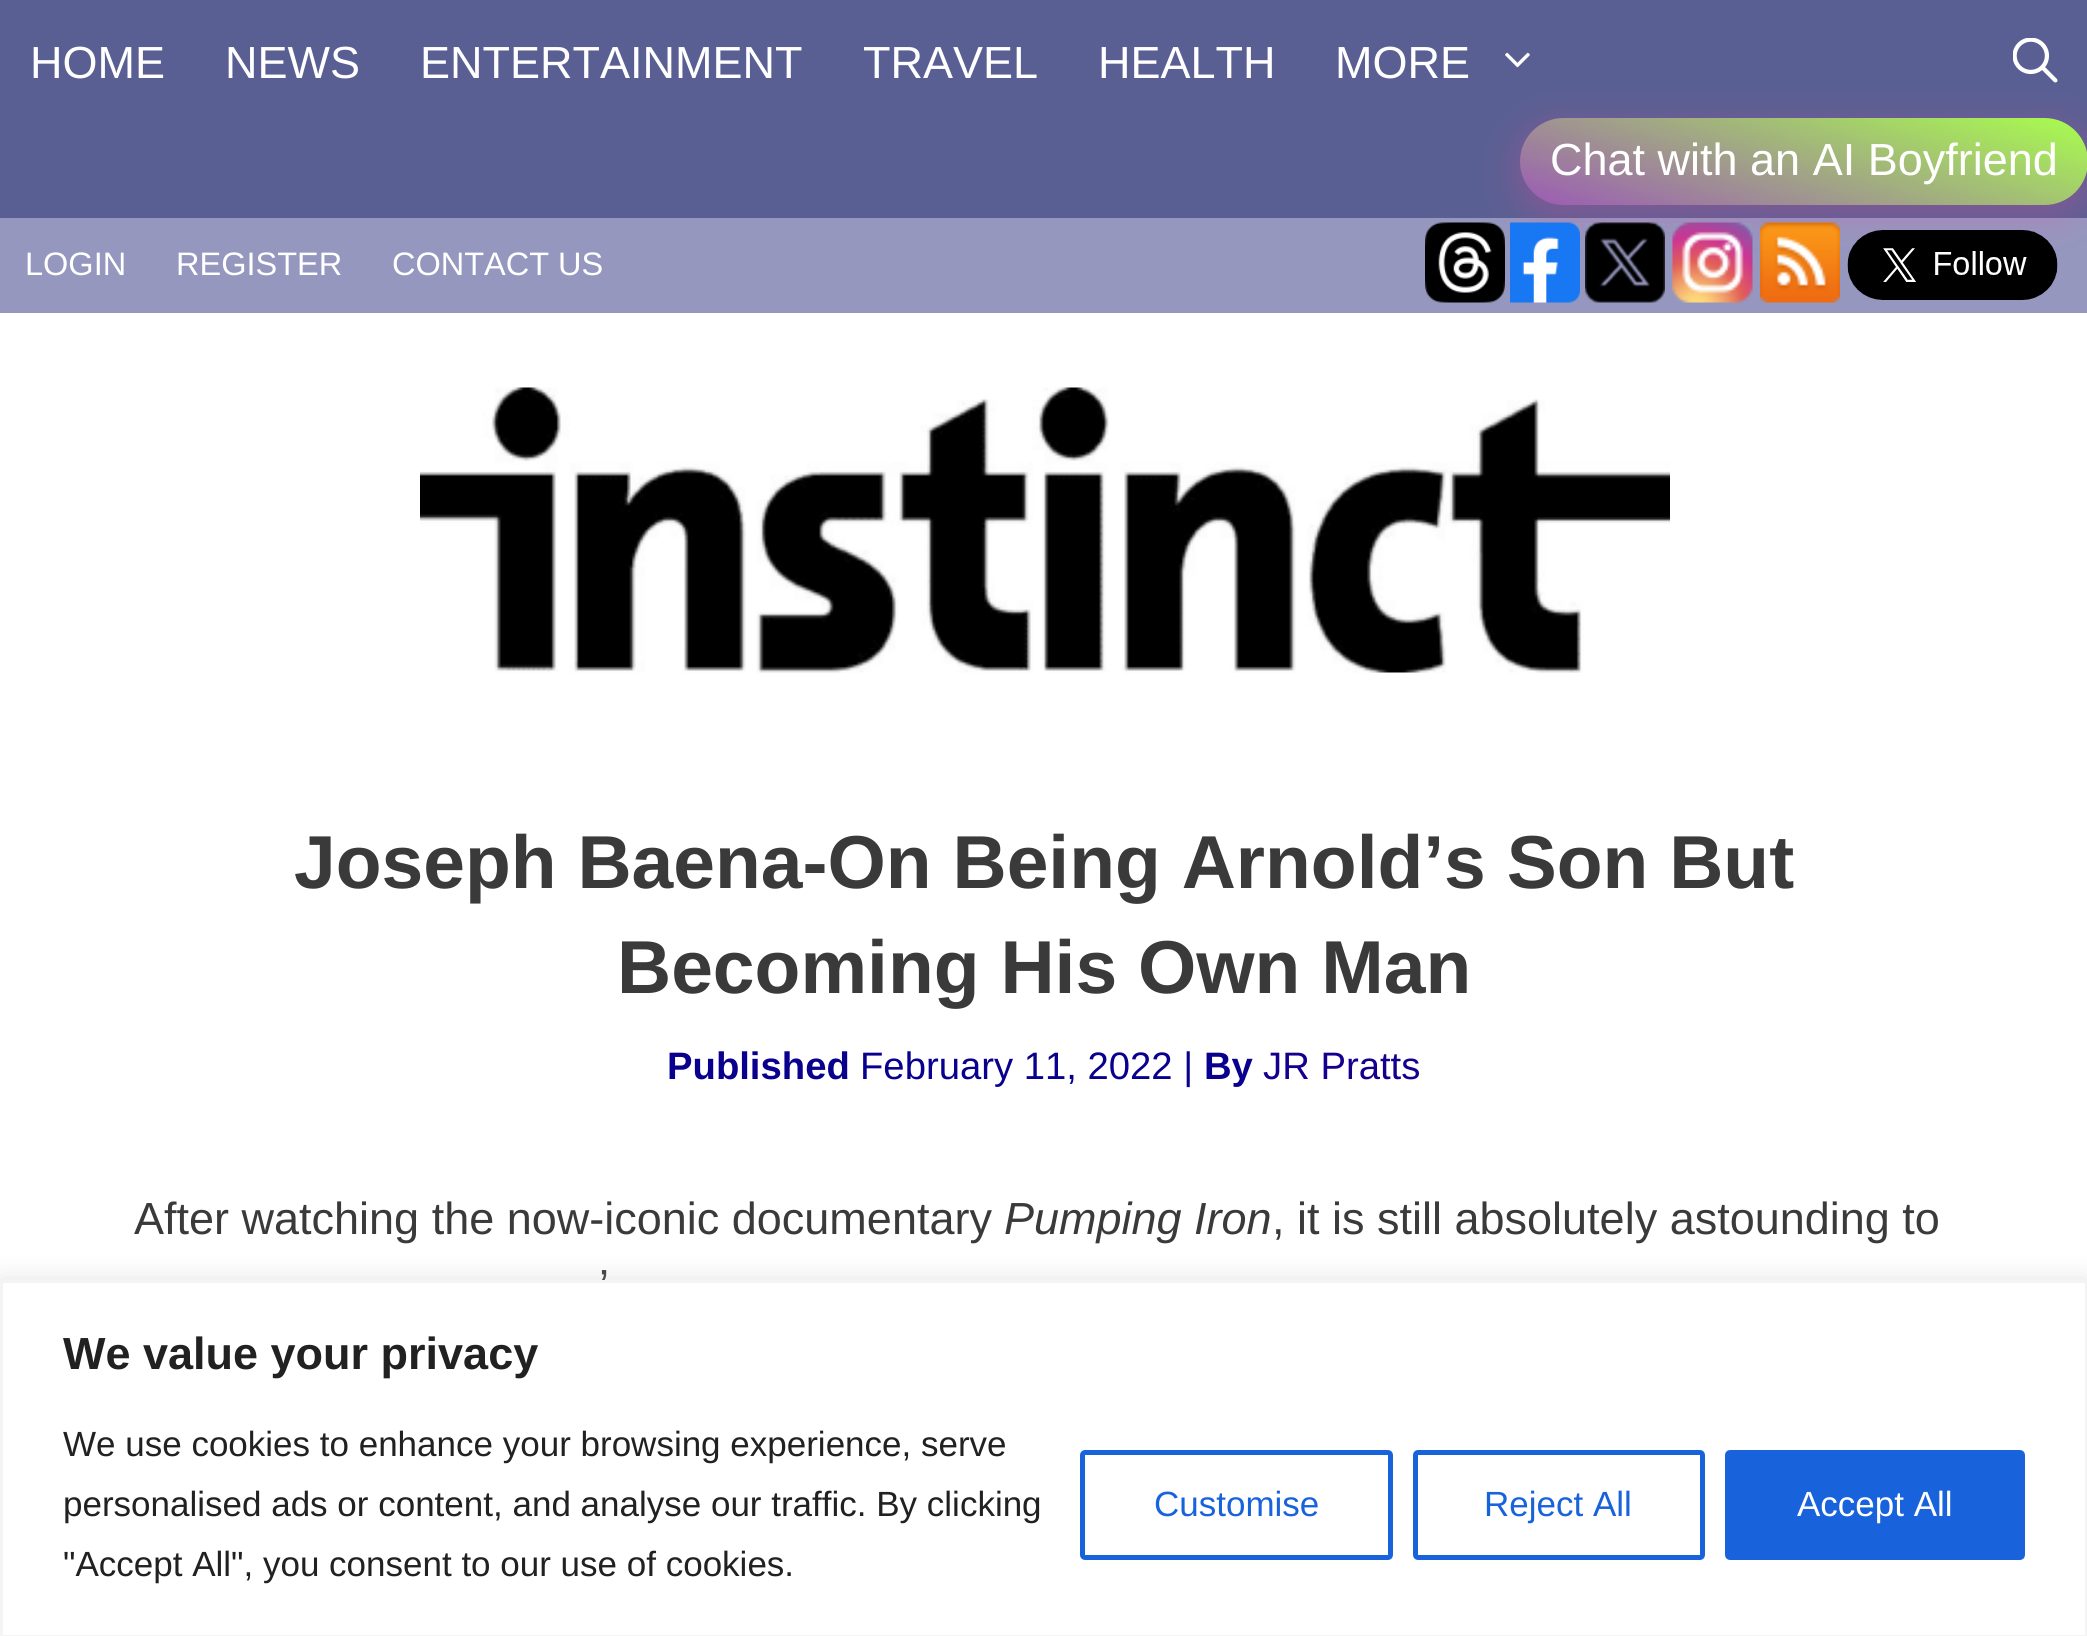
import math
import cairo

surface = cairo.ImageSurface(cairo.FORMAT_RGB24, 2087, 1636)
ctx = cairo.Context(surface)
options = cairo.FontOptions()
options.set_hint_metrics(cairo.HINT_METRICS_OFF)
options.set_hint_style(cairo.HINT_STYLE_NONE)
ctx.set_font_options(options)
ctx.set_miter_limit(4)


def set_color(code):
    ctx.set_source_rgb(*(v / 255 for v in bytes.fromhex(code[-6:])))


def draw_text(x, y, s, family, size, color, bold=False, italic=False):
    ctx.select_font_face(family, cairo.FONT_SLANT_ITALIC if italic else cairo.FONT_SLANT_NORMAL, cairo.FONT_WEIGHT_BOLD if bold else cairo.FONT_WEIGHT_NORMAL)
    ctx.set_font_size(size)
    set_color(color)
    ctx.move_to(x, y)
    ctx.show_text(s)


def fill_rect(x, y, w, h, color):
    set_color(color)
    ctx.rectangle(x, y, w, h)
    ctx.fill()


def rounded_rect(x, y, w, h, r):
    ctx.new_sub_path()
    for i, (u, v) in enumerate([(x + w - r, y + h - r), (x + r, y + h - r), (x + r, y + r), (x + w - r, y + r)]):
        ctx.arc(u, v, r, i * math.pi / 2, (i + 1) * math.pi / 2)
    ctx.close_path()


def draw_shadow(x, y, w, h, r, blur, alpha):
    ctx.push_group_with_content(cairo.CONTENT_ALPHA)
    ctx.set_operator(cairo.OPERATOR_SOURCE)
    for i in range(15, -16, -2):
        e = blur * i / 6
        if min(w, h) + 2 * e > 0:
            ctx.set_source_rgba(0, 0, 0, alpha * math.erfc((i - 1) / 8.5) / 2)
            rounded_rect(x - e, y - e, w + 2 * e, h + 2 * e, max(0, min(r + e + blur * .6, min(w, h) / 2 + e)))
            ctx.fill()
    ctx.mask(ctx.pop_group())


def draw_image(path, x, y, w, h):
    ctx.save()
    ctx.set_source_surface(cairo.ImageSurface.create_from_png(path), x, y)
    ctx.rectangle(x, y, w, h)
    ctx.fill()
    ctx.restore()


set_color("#5a5f93")
ctx.paint()
draw_text(30, 78, "HOME", "Liberation Sans", 45, "#ffffff")
draw_text(225, 78, "NEWS", "Liberation Sans", 45, "#ffffff")
draw_text(420, 78, "ENTERTAINMENT", "Liberation Sans", 45, "#ffffff")
draw_text(863, 78, "TRAVEL", "Liberation Sans", 45, "#ffffff")
draw_text(1098, 78, "HEALTH", "Liberation Sans", 45, "#ffffff")
draw_text(1335, 78, "MORE", "Liberation Sans", 45, "#ffffff")
draw_image("assets/img1.png", 1505, 52, 25, 16)
fill_rect(0, 218, 2087, 95, "#9597bf")
set_color("#ec4899")
draw_shadow(1520, 128, 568, 87, 43.5, 17.5, 0.3)
draw_image("assets/img2.png", 2013, 38, 45, 45)
gradient = cairo.LinearGradient(1767, 281, 1840, 42)
gradient.add_color_stop_rgba(0, 0.608, 0.349, 0.714, 1)
gradient.add_color_stop_rgba(1, 0.659, 1, 0.298, 1)
ctx.set_source(gradient)
rounded_rect(1520, 118, 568, 87, 43.5)
ctx.fill()
draw_text(1550, 175, "Chat with an AI Boyfriend", "Liberation Sans", 45, "#ffffff")
draw_text(25, 275, "LOGIN", "Liberation Sans", 32.5, "#ffffff")
draw_text(176, 275, "REGISTER", "Liberation Sans", 32.5, "#ffffff")
draw_text(392, 275, "CONTACT US", "Liberation Sans", 32.5, "#ffffff")
draw_image("assets/img3.png", 1425, 222, 80, 81)
fill_rect(1528, 223, 52, 14, "#9597bf")
draw_image("assets/img4.png", 1510, 222, 70, 81)
fill_rect(1585, 223, 80, 15, "#9597bf")
draw_image("assets/img5.png", 1585, 222, 80, 81)
fill_rect(1673, 223, 80, 14, "#9597bf")
draw_image("assets/img6.png", 1672, 222, 81, 81)
fill_rect(1760, 223, 80, 14, "#9597bf")
draw_image("assets/img7.png", 1760, 222, 80, 81)
draw_image("assets/img8.png", 1847, 230, 211, 70)
fill_rect(0, 313, 2087, 967, "#ffffff")
draw_image("assets/img9.png", 420, 387, 1250, 286)
draw_text(294, 888, "Joseph Baena-On Being Arnold’s Son But", "Liberation Sans", 75, "#3a3a3a", bold=True)
draw_text(617, 993, "Becoming His Own Man", "Liberation Sans", 75, "#3a3a3a", bold=True)
draw_text(667, 1079, "Published", "Liberation Sans", 38.25, "#09008e", bold=True)
draw_text(860, 1079, "February 11, 2022 |", "Liberation Sans", 38.25, "#09008e")
draw_text(1204, 1079, "By", "Liberation Sans", 38.25, "#09008e", bold=True)
draw_text(1263, 1079, "JR Pratts", "Liberation Sans", 38.25, "#15008e")
draw_text(134, 1234, "After watching the now-iconic documentary", "Liberation Sans", 45, "#3a3a3a")
draw_text(1004, 1234, "Pumping Iron", "Liberation Sans", 45, "#3a3a3a", italic=True)
draw_text(1272, 1234, ", it is still absolutely astounding to", "Liberation Sans", 45, "#3a3a3a")
draw_text(599, 1301, "’", "Liberation Sans", 45, "#3a3a3a")
set_color("#acabab")
draw_shadow(0, 1278, 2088, 357, 0, 12.5, 0.3)
set_color("#ffffff")
ctx.rectangle(1.5, 1281.5, 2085, 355)
ctx.fill_preserve()
set_color("#f4f4f4")
ctx.set_line_width(3)
ctx.stroke()
draw_text(63, 1369, "We value your privacy", "Liberation Sans", 45, "#212121", bold=True)
draw_text(63, 1456, "We use cookies to enhance your browsing experience, serve", "Liberation Sans", 35, "#212121")
draw_text(63, 1516, "personalised ads or content, and analyse our traffic. By clicking", "Liberation Sans", 35, "#212121")
draw_text(63, 1576, "\"Accept All\", you consent to our use of cookies.", "Liberation Sans", 35, "#212121")
rounded_rect(1082.5, 1452.5, 308, 105, 2.5)
set_color("#1863dc")
ctx.set_line_width(5)
ctx.stroke()
draw_text(1154, 1516, "Customise", "Liberation Sans", 35, "#1863dc")
rounded_rect(1415.5, 1452.5, 287, 105, 2.5)
ctx.stroke()
draw_text(1484, 1516, "Reject All", "Liberation Sans", 35, "#1863dc")
rounded_rect(1727.5, 1452.5, 295, 105, 2.5)
ctx.fill_preserve()
ctx.stroke()
draw_text(1797, 1516, "Accept All", "Liberation Sans", 35, "#ffffff")
surface.write_to_png("output.png")
